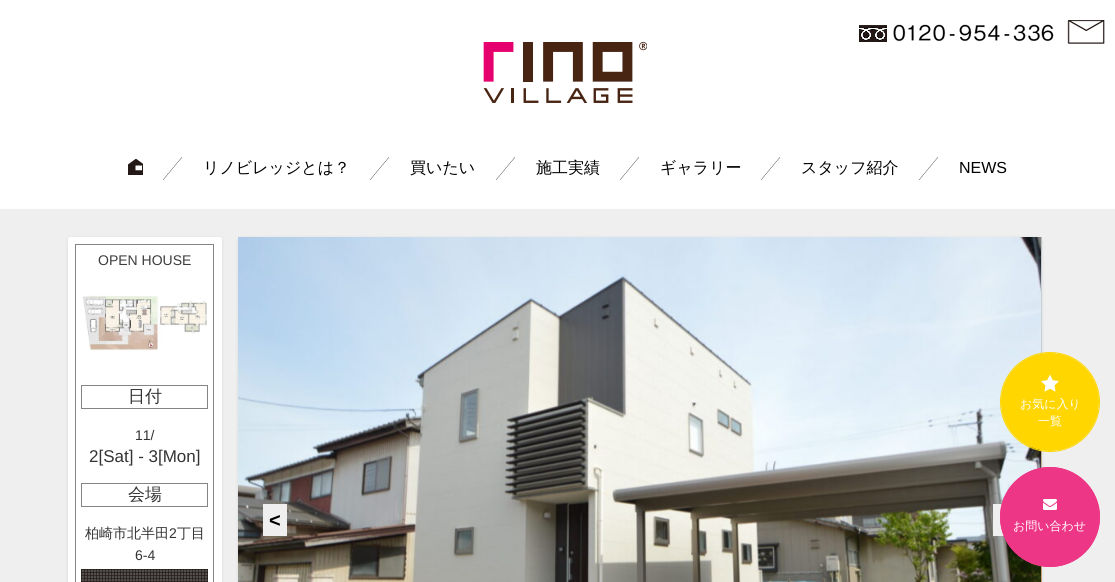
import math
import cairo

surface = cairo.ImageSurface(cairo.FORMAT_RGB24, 1115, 582)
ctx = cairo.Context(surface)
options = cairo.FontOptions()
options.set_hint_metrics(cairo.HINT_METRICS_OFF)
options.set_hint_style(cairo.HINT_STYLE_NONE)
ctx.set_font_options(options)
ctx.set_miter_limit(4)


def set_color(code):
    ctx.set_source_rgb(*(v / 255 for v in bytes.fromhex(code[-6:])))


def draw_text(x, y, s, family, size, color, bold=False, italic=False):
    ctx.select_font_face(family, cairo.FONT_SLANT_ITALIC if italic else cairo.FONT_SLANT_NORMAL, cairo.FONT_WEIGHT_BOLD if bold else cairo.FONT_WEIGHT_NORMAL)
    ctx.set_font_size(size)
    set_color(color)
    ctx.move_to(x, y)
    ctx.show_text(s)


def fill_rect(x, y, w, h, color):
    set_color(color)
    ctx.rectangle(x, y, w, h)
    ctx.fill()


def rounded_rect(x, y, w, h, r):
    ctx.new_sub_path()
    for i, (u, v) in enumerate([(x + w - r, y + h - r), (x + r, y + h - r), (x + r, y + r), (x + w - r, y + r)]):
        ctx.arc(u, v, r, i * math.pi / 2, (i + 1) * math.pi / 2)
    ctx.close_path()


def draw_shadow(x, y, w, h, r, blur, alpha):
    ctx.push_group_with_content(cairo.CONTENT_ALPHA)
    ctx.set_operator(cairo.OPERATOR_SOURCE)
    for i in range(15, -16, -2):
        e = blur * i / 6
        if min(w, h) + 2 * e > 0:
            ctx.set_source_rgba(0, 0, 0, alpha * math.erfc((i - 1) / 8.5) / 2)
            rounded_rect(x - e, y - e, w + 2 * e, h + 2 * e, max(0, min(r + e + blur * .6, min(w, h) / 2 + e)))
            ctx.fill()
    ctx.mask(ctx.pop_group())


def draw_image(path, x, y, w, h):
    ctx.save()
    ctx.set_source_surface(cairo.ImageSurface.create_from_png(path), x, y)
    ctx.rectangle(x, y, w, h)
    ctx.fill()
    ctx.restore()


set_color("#ffffff")
ctx.paint()
draw_image("assets/img1.png", 859, 20, 246, 24)
draw_image("assets/img2.png", 483, 42, 164, 61)
draw_image("assets/img3.png", 128, 159, 15, 16)
draw_image("assets/img4.png", 163, 157, 19, 23)
draw_text(203, 173, "リノビレッジとは？", "WenQuanYi Zen Hei Medium", 16, "#000000")
draw_image("assets/img4.png", 370, 157, 19, 23)
draw_text(410, 173, "買いたい", "WenQuanYi Zen Hei Medium", 16, "#000000")
draw_image("assets/img4.png", 496, 157, 19, 23)
draw_text(536, 173, "施工実績", "WenQuanYi Zen Hei Medium", 16, "#000000")
draw_image("assets/img4.png", 620, 157, 19, 23)
draw_text(660, 173, "ギャラリー", "WenQuanYi Zen Hei Medium", 16, "#000000")
draw_image("assets/img4.png", 761, 157, 19, 23)
draw_text(801, 173, "スタッフ紹介", "WenQuanYi Zen Hei Medium", 16, "#000000")
draw_image("assets/img4.png", 919, 157, 19, 23)
draw_text(959, 173, "NEWS", "Liberation Sans", 16, "#000000")
fill_rect(0, 209, 1115, 373, "#efefef")
set_color("#000001")
draw_shadow(68, 238, 154, 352, 3, 1.5, 0.1)
set_color("#ffffff")
rounded_rect(68, 237, 154, 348, 3)
ctx.fill()
ctx.rectangle(75.5, 244.5, 138, 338)
set_color("#848484")
ctx.set_line_width(1)
ctx.stroke()
draw_text(98, 265, "OPEN HOUSE", "Liberation Sans", 14, "#3d3d3d")
draw_image("assets/img5.png", 82, 295, 125, 56)
ctx.rectangle(81.5, 385.5, 126, 23)
set_color("#848484")
ctx.stroke()
draw_text(128, 402, "日付", "WenQuanYi Zen Hei Medium", 17, "#333333")
draw_text(135, 440, "11/", "Liberation Sans", 14, "#333333")
draw_text(89, 462, "2[Sat] - 3[Mon]", "Liberation Sans", 17, "#333333")
ctx.rectangle(81.5, 483.5, 126, 23)
set_color("#848484")
ctx.stroke()
draw_text(128, 500, "会場", "WenQuanYi Zen Hei Medium", 17, "#333333")
draw_text(85, 538, "柏崎市北半田", "WenQuanYi Zen Hei Medium", 14, "#333333")
draw_text(169, 538, "2", "Liberation Sans", 14, "#333333")
draw_text(177, 538, "丁目", "WenQuanYi Zen Hei Medium", 14, "#333333")
draw_text(135, 560, "6-4", "Liberation Sans", 14, "#333333")
draw_image("assets/img6.png", 81, 569, 127, 13)
set_color("#000001")
draw_shadow(238, 238, 804, 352, 3, 1.5, 0.1)
draw_image("assets/img7.png", 238, 237, 803, 345)
draw_image("assets/img8.png", 1041, 237, 1, 345)
fill_rect(263, 504, 24, 32, "#efefef")
draw_text(269, 527, "<", "Liberation Sans", 20, "#000000", bold=True)
fill_rect(993, 504, 11, 32, "#efefef")
ctx.new_path()
ctx.arc(1050, 402, 49.5, 0, 2 * math.pi)
set_color("#ffd600")
ctx.stroke()
ctx.arc(1050, 402, 49, 0, 2 * math.pi)
ctx.fill()
draw_image("assets/img9.png", 1041, 374, 18, 18)
draw_text(1020, 408, "お気に入り", "WenQuanYi Zen Hei Medium", 12, "#ffffff")
draw_text(1038, 425, "一覧", "WenQuanYi Zen Hei Medium", 12, "#ffffff")
ctx.new_path()
ctx.arc(1050, 517, 49.5, 0, 2 * math.pi)
set_color("#ed3686")
ctx.stroke()
ctx.arc(1050, 517, 50, 0, 2 * math.pi)
ctx.fill()
draw_image("assets/img10.png", 1043, 499, 14, 11)
draw_text(1013, 530, "お問い合わせ", "WenQuanYi Zen Hei Medium", 12, "#ffffff")
surface.write_to_png("output.png")
